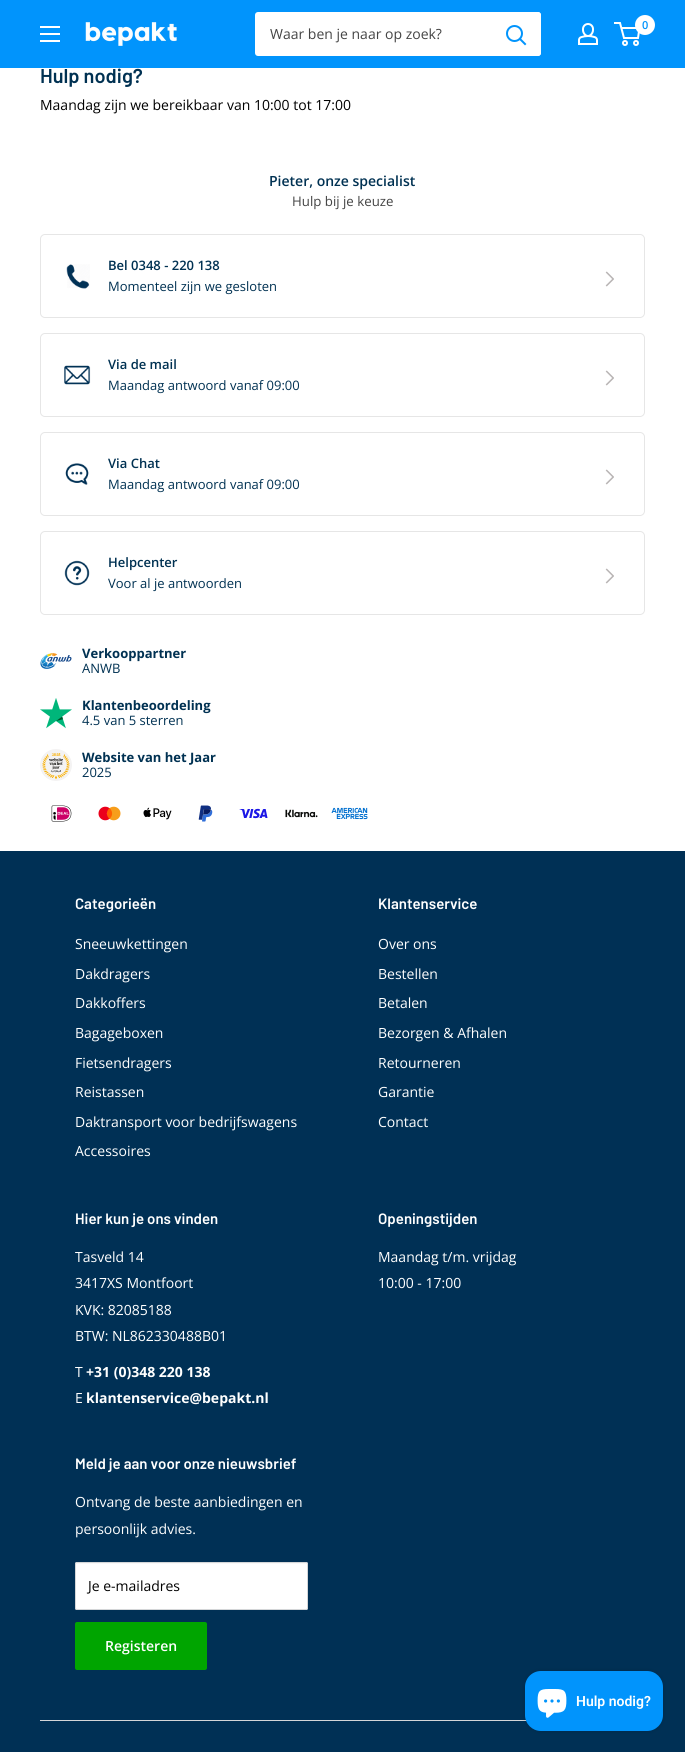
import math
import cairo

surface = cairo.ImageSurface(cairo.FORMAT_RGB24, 685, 1752)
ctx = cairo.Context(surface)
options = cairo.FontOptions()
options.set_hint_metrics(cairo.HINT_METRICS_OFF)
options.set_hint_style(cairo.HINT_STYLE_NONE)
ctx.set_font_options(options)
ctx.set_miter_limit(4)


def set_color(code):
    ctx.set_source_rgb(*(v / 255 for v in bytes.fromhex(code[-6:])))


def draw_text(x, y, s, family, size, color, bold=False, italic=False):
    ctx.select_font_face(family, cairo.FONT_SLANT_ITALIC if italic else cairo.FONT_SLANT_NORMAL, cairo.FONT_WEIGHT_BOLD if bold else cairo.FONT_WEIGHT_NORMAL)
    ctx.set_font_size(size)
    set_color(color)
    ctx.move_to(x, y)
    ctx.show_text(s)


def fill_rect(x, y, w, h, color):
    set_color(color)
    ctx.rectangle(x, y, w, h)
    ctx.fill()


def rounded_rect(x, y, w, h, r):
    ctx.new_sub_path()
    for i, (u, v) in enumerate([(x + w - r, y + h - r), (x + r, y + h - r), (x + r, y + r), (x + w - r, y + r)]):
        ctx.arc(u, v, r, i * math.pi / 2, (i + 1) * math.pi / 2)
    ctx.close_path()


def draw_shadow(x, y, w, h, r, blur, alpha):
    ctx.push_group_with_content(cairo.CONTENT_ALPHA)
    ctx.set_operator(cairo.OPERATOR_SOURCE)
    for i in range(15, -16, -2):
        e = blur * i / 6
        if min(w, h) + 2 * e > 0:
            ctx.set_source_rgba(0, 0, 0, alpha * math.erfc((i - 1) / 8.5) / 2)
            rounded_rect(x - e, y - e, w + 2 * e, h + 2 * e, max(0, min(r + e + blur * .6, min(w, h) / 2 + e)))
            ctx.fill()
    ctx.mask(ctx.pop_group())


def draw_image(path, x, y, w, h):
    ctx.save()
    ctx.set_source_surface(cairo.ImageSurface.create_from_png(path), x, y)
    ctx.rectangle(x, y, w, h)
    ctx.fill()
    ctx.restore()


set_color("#003055")
ctx.paint()
fill_rect(0, 0, 685, 68, "#0194fc")
draw_image("assets/img1.png", 40, 26, 20, 16)
draw_image("assets/img2.png", 85, 22, 92, 24)
set_color("#ffffff")
rounded_rect(255, 12, 286, 44, 3)
ctx.fill()
draw_text(270, 39, "Waar ben je naar op zoek?", "Open Sans", 14, "#444444")
set_color("#ffffff")
ctx.new_path()
ctx.move_to(491, 12)
ctx.line_to(538, 12)
ctx.curve_to(539.5, 12, 541, 13.5, 541, 15)
ctx.line_to(541, 53)
ctx.curve_to(541, 54.5, 539.5, 56, 538, 56)
ctx.line_to(491, 56)
ctx.close_path()
ctx.fill()
ctx.new_path()
ctx.move_to(525, 44)
ctx.line_to(520, 39)
set_color("#0194fc")
ctx.set_line_cap(cairo.LINE_CAP_SQUARE)
ctx.stroke()
ctx.arc(514.5, 33.5, 7.5, 0, 2 * math.pi)
ctx.set_line_cap(cairo.LINE_CAP_BUTT)
ctx.stroke()
draw_image("assets/img3.png", 578, 23, 20, 22)
ctx.arc(625, 43, 2, 0, 2 * math.pi)
set_color("#ffffff")
ctx.stroke()
ctx.arc(636, 43, 2, 0, 2 * math.pi)
ctx.stroke()
ctx.new_path()
ctx.move_to(621.5, 28)
ctx.line_to(639.5, 28)
ctx.line_to(638, 38)
ctx.line_to(624, 38)
ctx.line_to(620, 23)
ctx.line_to(614, 23)
ctx.stroke()
ctx.arc(645, 25, 10, 0, 2 * math.pi)
ctx.fill()
draw_text(642, 29, "0", "Open Sans SemiBold", 11, "#0194fc")
fill_rect(0, 68, 685, 783, "#ffffff")
draw_text(40, 83, "Hulp nodig?", "Barlow SemiBold", 20, "#003152")
draw_text(40, 110, "Maandag zijn we bereikbaar van 10:00 tot 17:00", "Open Sans", 14, "#000000")
draw_text(269, 186, "Pieter, onze specialist", "Open Sans SemiBold", 14, "#003152")
draw_text(292, 206, "Hulp bij je keuze", "Open Sans", 13.25, "#444444")
rounded_rect(40.5, 234.5, 604, 83, 4.5)
set_color("#e6e6e6")
ctx.set_line_width(1)
ctx.stroke()
draw_image("assets/img4.png", 66, 264, 24, 25)
draw_text(108, 270, "Bel 0348 - 220 138", "Open Sans SemiBold", 13, "#003152")
draw_text(108, 291, "Momenteel zijn we gesloten", "Open Sans", 13, "#003152")
draw_image("assets/img5.png", 605, 271, 9, 16)
rounded_rect(40.5, 333.5, 604, 83, 4.5)
set_color("#e6e6e6")
ctx.stroke()
draw_image("assets/img6.png", 64, 365, 27, 20)
draw_text(108, 369, "Via de mail", "Open Sans SemiBold", 13, "#003152")
draw_text(108, 390, "Maandag antwoord vanaf 09:00", "Open Sans", 13, "#003152")
draw_image("assets/img5.png", 605, 370, 9, 16)
rounded_rect(40.5, 432.5, 604, 83, 4.5)
set_color("#e6e6e6")
ctx.stroke()
draw_image("assets/img7.png", 65, 463, 24, 22)
draw_text(108, 468, "Via Chat", "Open Sans SemiBold", 13, "#003152")
draw_text(108, 489, "Maandag antwoord vanaf 09:00", "Open Sans", 13, "#003152")
draw_image("assets/img5.png", 605, 469, 9, 16)
rounded_rect(40.5, 531.5, 604, 83, 4.5)
set_color("#e6e6e6")
ctx.stroke()
draw_image("assets/img8.png", 64, 560, 26, 26)
draw_text(108, 567, "Helpcenter", "Open Sans SemiBold", 13, "#003152")
draw_text(108, 588, "Voor al je antwoorden", "Open Sans", 13, "#003152")
draw_image("assets/img5.png", 605, 568, 9, 16)
draw_image("assets/img9.png", 40, 653, 32, 16)
draw_text(82, 658, "Verkooppartner", "Open Sans", 13, "#003152", bold=True)
draw_text(82, 673, "ANWB", "Open Sans", 13, "#003152")
draw_image("assets/img10.png", 40, 698, 32, 31)
draw_text(82, 710, "Klantenbeoordeling", "Open Sans", 13, "#003152", bold=True)
draw_text(82, 725, "4.5 van 5 sterren", "Open Sans", 13, "#003152")
draw_image("assets/img11.png", 40, 749, 32, 32)
draw_text(82, 762, "Website van het Jaar", "Open Sans", 13, "#003152", bold=True)
draw_text(82, 777, "2025", "Open Sans", 13, "#003152")
draw_image("assets/img12.png", 51, 805, 21, 17)
draw_image("assets/img13.png", 98, 806, 23, 15)
draw_image("assets/img14.png", 143, 807, 29, 13)
draw_image("assets/img15.png", 198, 805, 15, 17)
draw_image("assets/img16.png", 239, 808, 29, 11)
draw_image("assets/img17.png", 285, 809, 33, 9)
draw_image("assets/img18.png", 331, 807, 37, 13)
draw_text(75, 909, "Categorieën", "Barlow SemiBold", 15, "#ffffff")
draw_text(75, 949, "Sneeuwkettingen", "Open Sans", 14, "#ffffff")
draw_text(75, 979, "Dakdragers", "Open Sans", 14, "#ffffff")
draw_text(75, 1008, "Dakkoffers", "Open Sans", 14, "#ffffff")
draw_text(75, 1038, "Bagageboxen", "Open Sans", 14, "#ffffff")
draw_text(75, 1068, "Fietsendragers", "Open Sans", 14, "#ffffff")
draw_text(75, 1097, "Reistassen", "Open Sans", 14, "#ffffff")
draw_text(75, 1127, "Daktransport voor bedrijfswagens", "Open Sans", 14, "#ffffff")
draw_text(75, 1156, "Accessoires", "Open Sans", 14, "#ffffff")
draw_text(378, 909, "Klantenservice", "Barlow SemiBold", 15, "#ffffff")
draw_text(378, 949, "Over ons", "Open Sans", 14, "#ffffff")
draw_text(378, 979, "Bestellen", "Open Sans", 14, "#ffffff")
draw_text(378, 1008, "Betalen", "Open Sans", 14, "#ffffff")
draw_text(378, 1038, "Bezorgen & Afhalen", "Open Sans", 14, "#ffffff")
draw_text(378, 1068, "Retourneren", "Open Sans", 14, "#ffffff")
draw_text(378, 1097, "Garantie", "Open Sans", 14, "#ffffff")
draw_text(378, 1127, "Contact", "Open Sans", 14, "#ffffff")
draw_text(75, 1224, "Hier kun je ons vinden", "Barlow SemiBold", 15, "#ffffff")
draw_text(75, 1262, "Tasveld 14", "Open Sans", 14, "#ffffff")
draw_text(75, 1288, "3417XS Montfoort", "Open Sans", 14, "#ffffff")
draw_text(75, 1315, "KVK: 82085188", "Open Sans", 14, "#ffffff")
draw_text(75, 1341, "BTW: NL862330488B01", "Open Sans", 14, "#ffffff")
draw_text(75, 1377, "T", "Open Sans", 14, "#ffffff")
draw_text(86, 1377, "+31 (0)348 220 138", "Open Sans", 14, "#ffffff", bold=True)
draw_text(75, 1403, "E", "Open Sans", 14, "#ffffff")
draw_text(86, 1403, "klantenservice@bepakt.nl", "Open Sans", 14, "#ffffff", bold=True)
draw_text(378, 1224, "Openingstijden", "Barlow SemiBold", 15, "#ffffff")
draw_text(378, 1262, "Maandag t/m. vrijdag", "Open Sans", 14, "#ffffff")
draw_text(378, 1288, "10:00 - 17:00", "Open Sans", 14, "#ffffff")
draw_text(75, 1469, "Meld je aan voor onze nieuwsbrief", "Barlow SemiBold", 15, "#ffffff")
draw_text(75, 1507, "Ontvang de beste aanbiedingen en", "Open Sans", 14, "#ffffff")
draw_text(75, 1534, "persoonlijk advies.", "Open Sans", 14, "#ffffff")
rounded_rect(75, 1562, 233, 48, 2)
ctx.fill()
set_color("#f8f8f8")
ctx.new_path()
ctx.move_to(77, 1564)
ctx.line_to(307, 1564)
ctx.line_to(307, 1565)
ctx.line_to(307, 1563)
ctx.line_to(77, 1563)
ctx.curve_to(76, 1563, 76, 1564, 76, 1565)
ctx.curve_to(76, 1564, 76, 1564, 77, 1564)
ctx.close_path()
ctx.fill()
rounded_rect(75.5, 1562.5, 232, 47, 1.5)
set_color("#d4d6d8")
ctx.stroke()
draw_text(88, 1591, "Je e-mailadres", "Open Sans", 14, "#000000")
set_color("#00a500")
rounded_rect(75, 1622, 132, 48, 2)
ctx.fill()
draw_text(105, 1651, "Registeren", "Open Sans SemiBold", 14, "#ffffff")
fill_rect(40, 1720, 487, 1, "#d4d6d8")
set_color("#000000")
draw_shadow(525, 1671, 138, 60, 16, 2.5, 0.15)
set_color("#0194fc")
rounded_rect(525, 1671, 138, 60, 16)
ctx.fill()
draw_image("assets/img19.png", 537, 1689, 30, 29)
draw_text(576, 1706, "Hulp nodig?", "Roboto SemiBold", 14, "#ffffff")
surface.write_to_png("output.png")
